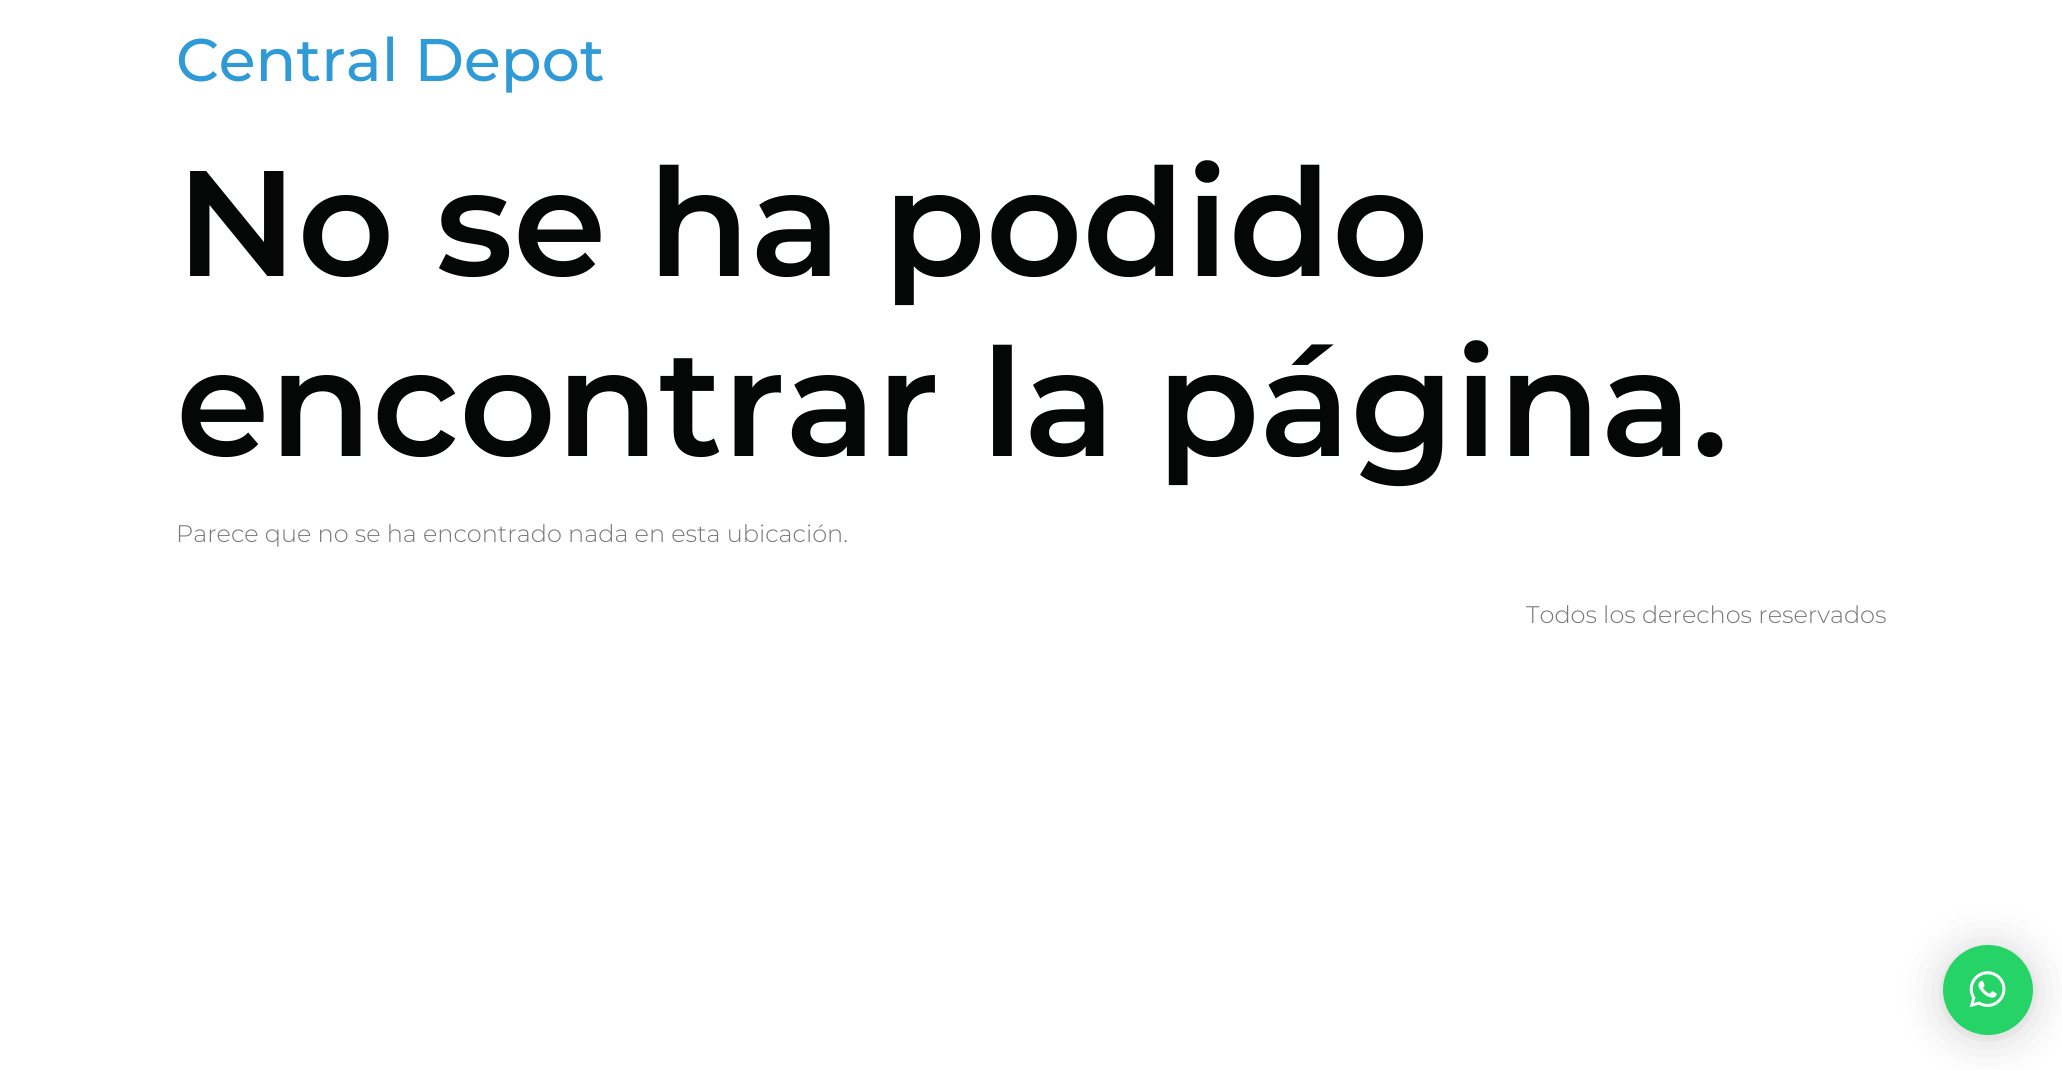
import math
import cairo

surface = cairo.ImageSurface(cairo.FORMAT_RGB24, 2062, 1070)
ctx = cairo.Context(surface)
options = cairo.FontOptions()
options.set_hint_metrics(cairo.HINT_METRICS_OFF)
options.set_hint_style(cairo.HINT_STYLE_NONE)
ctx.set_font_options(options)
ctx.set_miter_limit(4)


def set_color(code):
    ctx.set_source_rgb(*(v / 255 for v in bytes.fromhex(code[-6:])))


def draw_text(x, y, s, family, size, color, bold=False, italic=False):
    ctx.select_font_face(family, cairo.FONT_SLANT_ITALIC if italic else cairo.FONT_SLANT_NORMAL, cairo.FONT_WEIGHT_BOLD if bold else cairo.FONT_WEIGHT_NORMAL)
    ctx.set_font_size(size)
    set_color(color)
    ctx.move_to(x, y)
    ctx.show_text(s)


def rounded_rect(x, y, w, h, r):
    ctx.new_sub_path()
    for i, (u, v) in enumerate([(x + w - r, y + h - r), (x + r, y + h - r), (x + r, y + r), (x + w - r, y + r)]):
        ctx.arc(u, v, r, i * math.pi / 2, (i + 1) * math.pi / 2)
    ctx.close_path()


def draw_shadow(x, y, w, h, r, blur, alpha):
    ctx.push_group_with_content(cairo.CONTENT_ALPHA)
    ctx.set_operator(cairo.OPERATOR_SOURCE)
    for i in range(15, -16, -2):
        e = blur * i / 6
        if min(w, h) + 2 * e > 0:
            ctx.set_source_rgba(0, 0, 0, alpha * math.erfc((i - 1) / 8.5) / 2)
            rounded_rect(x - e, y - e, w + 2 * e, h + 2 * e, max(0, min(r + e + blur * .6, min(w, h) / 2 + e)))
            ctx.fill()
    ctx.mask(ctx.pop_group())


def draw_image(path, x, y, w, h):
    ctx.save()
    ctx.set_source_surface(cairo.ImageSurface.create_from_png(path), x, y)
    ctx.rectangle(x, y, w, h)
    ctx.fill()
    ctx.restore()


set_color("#ffffff")
ctx.paint()
draw_text(176, 81, "Central Depot", "Montserrat Medium", 60, "#309ad6")
draw_text(176, 276, "No se ha podido", "Montserrat SemiBold", 150, "#050706")
draw_text(176, 456, "encontrar la página.", "Montserrat SemiBold", 150, "#050706")
draw_text(176, 542, "Parece que no se ha encontrado nada en esta ubicación.", "Montserrat Light", 24, "#787878")
draw_text(1526, 623, "Todos los derechos reservados", "Montserrat Light", 24, "#787878")
set_color("#000000")
draw_shadow(1943, 948, 90, 90, 45, 24, 0.16)
draw_shadow(1943, 947, 90, 90, 45, 4.5, 0.06)
set_color("#25d366")
ctx.arc(1988, 990, 45, 0, 2 * math.pi)
ctx.fill()
draw_image("assets/img1.png", 1969, 971, 37, 37)
surface.write_to_png("output.png")
